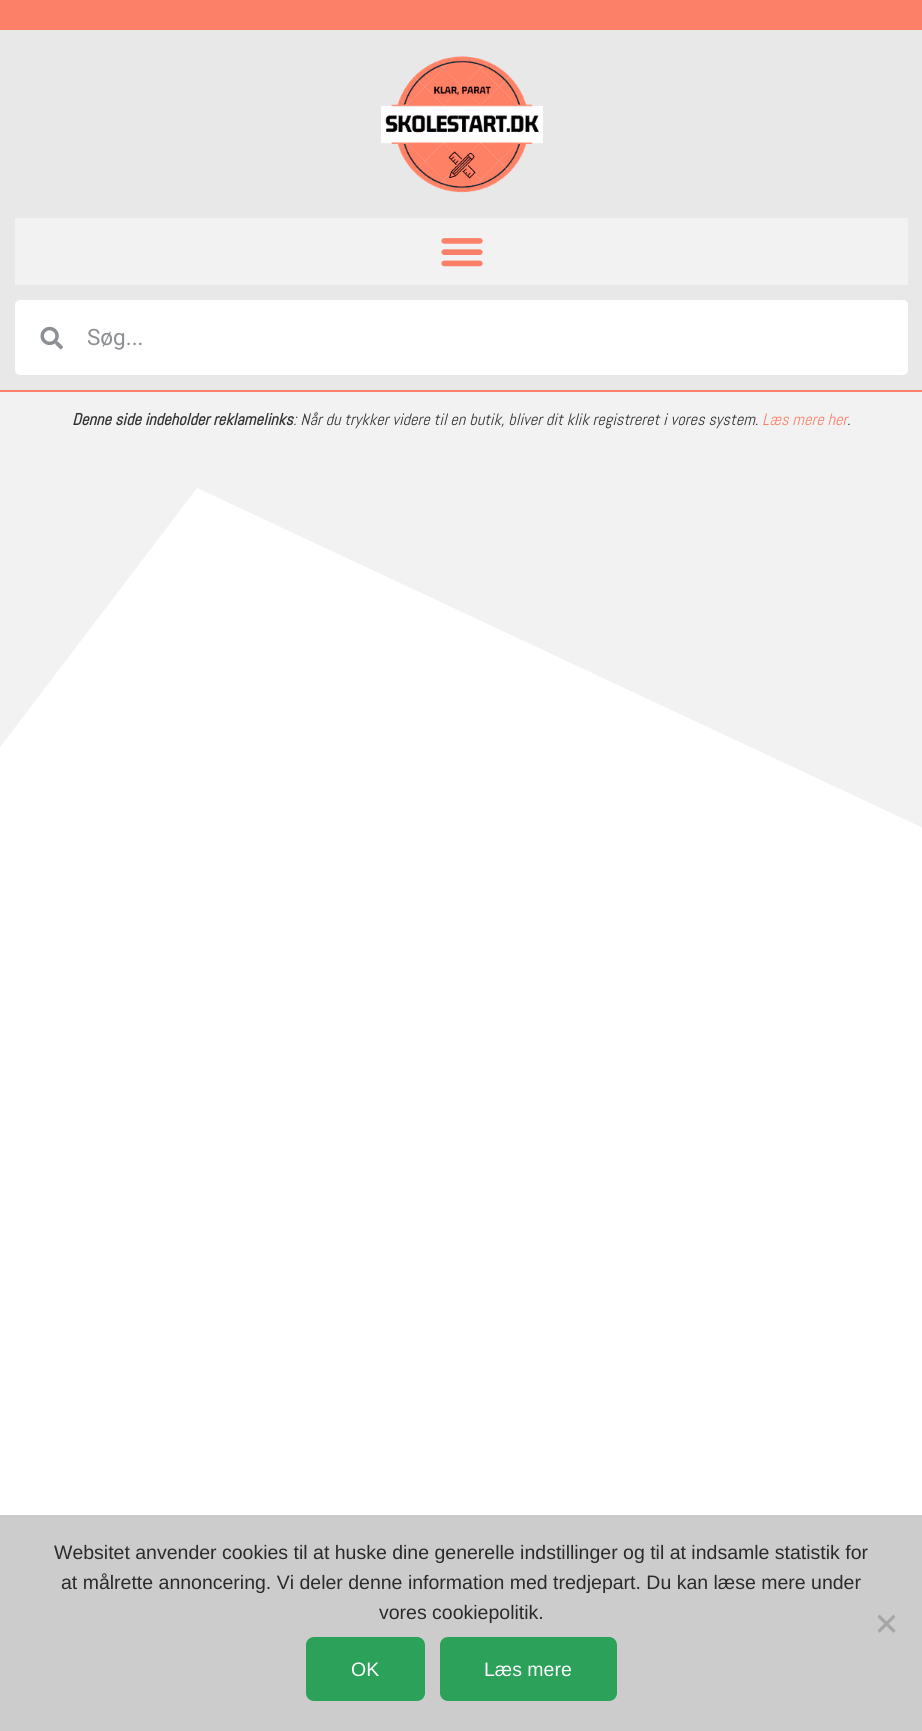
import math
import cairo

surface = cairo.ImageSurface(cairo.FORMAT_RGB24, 922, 1731)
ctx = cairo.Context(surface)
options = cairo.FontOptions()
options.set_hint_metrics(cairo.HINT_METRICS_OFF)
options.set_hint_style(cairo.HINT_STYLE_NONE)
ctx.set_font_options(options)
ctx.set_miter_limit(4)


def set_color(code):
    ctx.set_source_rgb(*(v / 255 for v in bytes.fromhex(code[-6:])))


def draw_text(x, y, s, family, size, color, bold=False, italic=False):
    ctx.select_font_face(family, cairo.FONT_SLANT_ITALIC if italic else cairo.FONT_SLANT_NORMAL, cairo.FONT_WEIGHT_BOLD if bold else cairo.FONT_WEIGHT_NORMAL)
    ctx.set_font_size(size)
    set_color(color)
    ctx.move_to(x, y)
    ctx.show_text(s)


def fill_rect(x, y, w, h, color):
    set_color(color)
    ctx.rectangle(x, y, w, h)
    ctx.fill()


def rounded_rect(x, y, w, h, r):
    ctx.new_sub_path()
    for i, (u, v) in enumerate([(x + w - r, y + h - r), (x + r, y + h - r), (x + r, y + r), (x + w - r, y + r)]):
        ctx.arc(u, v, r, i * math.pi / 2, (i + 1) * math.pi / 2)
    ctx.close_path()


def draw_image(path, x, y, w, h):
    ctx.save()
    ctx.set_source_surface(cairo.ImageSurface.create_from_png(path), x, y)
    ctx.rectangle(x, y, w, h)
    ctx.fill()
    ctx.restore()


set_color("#f2f2f2")
ctx.paint()
fill_rect(0, 0, 922, 30, "#fb8067")
fill_rect(0, 30, 922, 360, "#e8e8e8")
fill_rect(0, 390, 922, 2, "#fb8067")
draw_image("assets/img1.png", 381, 56, 162, 138)
fill_rect(15, 218, 893, 67, "#f2f2f2")
draw_image("assets/img2.png", 441, 238, 42, 29)
set_color("#ffffff")
rounded_rect(15, 300, 893, 75, 5)
ctx.fill()
draw_image("assets/img3.png", 40, 326, 23, 24)
draw_text(87, 345, "Søg...", "Roboto", 22.5, "#8c8f93")
draw_text(72, 425, "Denne side indeholder reklamelinks", "Abel", 16.5, "#333333", bold=True, italic=True)
draw_text(293, 425, ": Når du trykker videre til en butik, bliver dit klik registreret i vores system.", "Abel", 16.5, "#333333", italic=True)
draw_text(762, 425, "Læs mere her", "Abel", 16.5, "#fb8067", italic=True)
draw_text(847, 425, ".", "Abel", 16.5, "#333333", italic=True)
fill_rect(0, 488, 922, 1243, "#ffffff")
ctx.save()
ctx.rectangle(0, 467, 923, 405)
ctx.clip()
set_color("#f2f2f2")
ctx.new_path()
ctx.move_to(197, 488)
ctx.line_to(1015, 871)
ctx.line_to(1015, 466)
ctx.line_to(-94, 466)
ctx.line_to(-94, 871)
ctx.close_path()
ctx.fill()
ctx.restore()
ctx.set_source_rgba(0.749, 0.749, 0.749, 0.8)
ctx.rectangle(0, 1515, 922, 216)
ctx.fill()
draw_text(54, 1559, "Websitet anvender cookies til at huske dine generelle indstillinger og til at indsamle statistik for", "Liberation Sans", 19.5, "#2b2b2b")
draw_text(61, 1589, "at målrette annoncering. Vi deler denne information med tredjepart. Du kan læse mere under", "Liberation Sans", 19.5, "#2b2b2b")
draw_text(379, 1619, "vores cookiepolitik.", "Liberation Sans", 19.5, "#2b2b2b")
set_color("#a6a6a6")
ctx.new_path()
ctx.move_to(893.5, 1614.5)
ctx.line_to(895.5, 1617)
ctx.line_to(879.5, 1633)
ctx.line_to(877.5, 1630.5)
ctx.close_path()
ctx.fill()
ctx.new_path()
ctx.move_to(877.5, 1617)
ctx.line_to(879.5, 1614.5)
ctx.line_to(895.5, 1630.5)
ctx.line_to(893.5, 1633)
ctx.close_path()
ctx.fill()
set_color("#2ba15a")
rounded_rect(306, 1637, 119, 64, 8)
ctx.fill()
draw_text(351, 1676, "OK", "Liberation Sans", 19.5, "#ffffff")
set_color("#2ba15a")
rounded_rect(440, 1637, 177, 64, 8)
ctx.fill()
draw_text(484, 1676, "Læs mere", "Liberation Sans", 19.5, "#ffffff")
surface.write_to_png("output.png")
